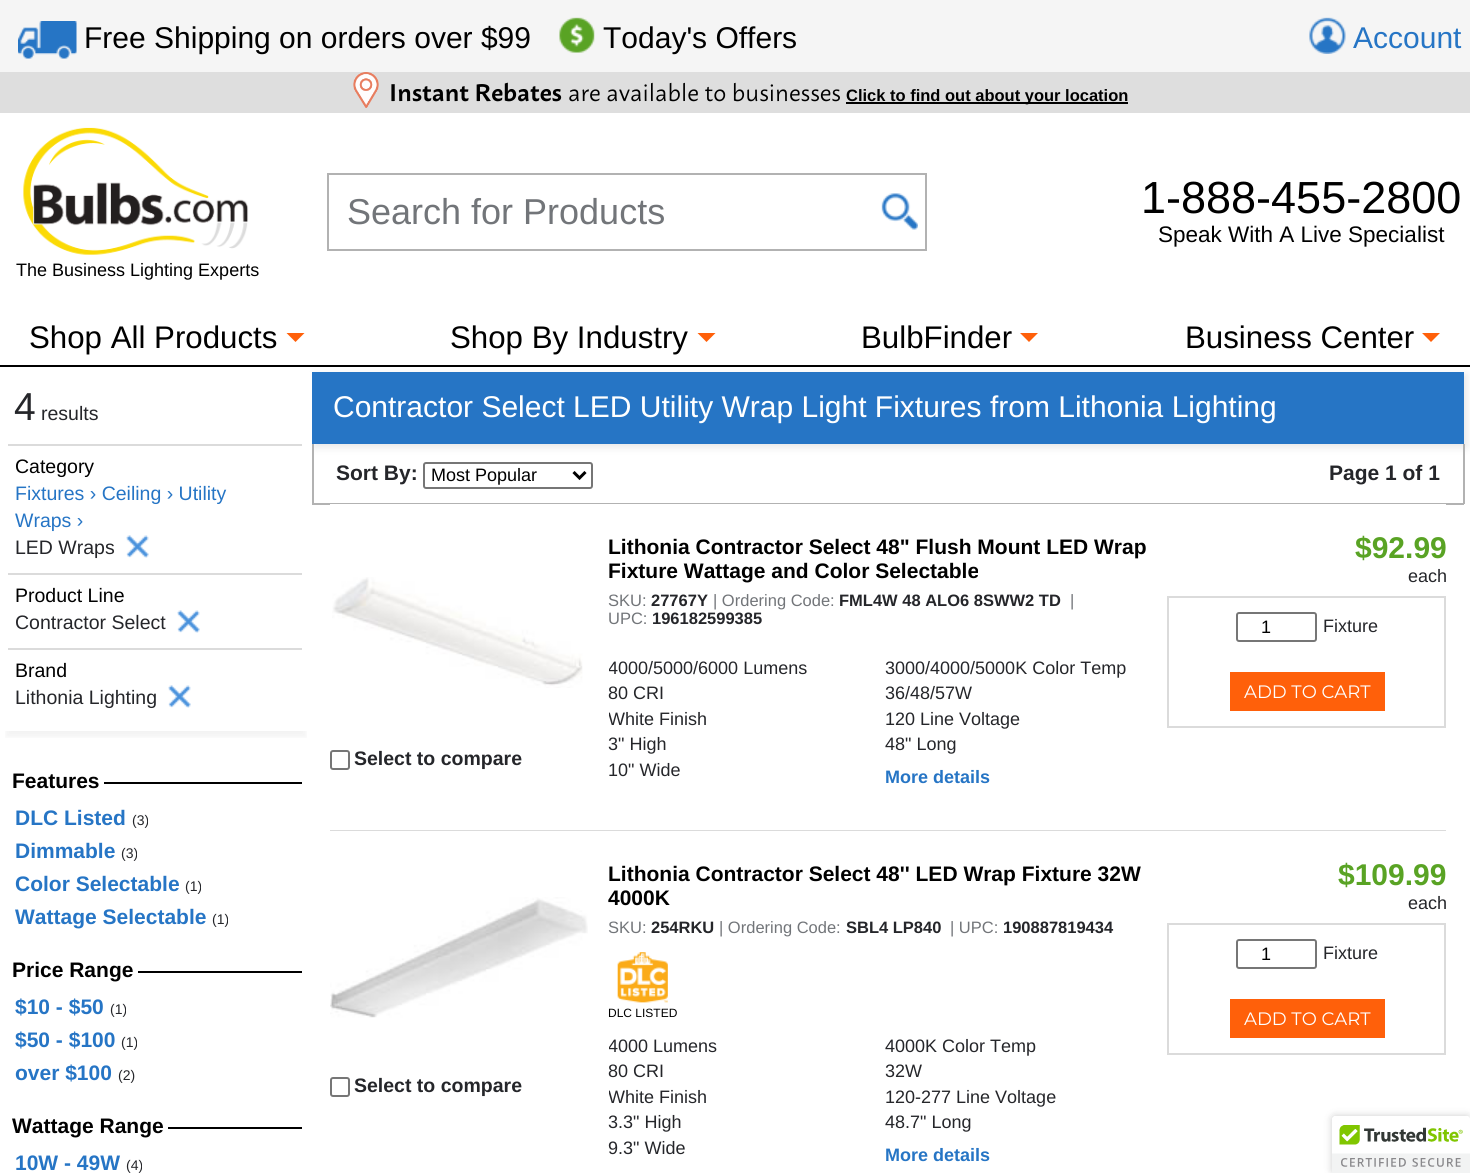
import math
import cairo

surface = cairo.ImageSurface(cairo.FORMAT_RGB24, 1470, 1173)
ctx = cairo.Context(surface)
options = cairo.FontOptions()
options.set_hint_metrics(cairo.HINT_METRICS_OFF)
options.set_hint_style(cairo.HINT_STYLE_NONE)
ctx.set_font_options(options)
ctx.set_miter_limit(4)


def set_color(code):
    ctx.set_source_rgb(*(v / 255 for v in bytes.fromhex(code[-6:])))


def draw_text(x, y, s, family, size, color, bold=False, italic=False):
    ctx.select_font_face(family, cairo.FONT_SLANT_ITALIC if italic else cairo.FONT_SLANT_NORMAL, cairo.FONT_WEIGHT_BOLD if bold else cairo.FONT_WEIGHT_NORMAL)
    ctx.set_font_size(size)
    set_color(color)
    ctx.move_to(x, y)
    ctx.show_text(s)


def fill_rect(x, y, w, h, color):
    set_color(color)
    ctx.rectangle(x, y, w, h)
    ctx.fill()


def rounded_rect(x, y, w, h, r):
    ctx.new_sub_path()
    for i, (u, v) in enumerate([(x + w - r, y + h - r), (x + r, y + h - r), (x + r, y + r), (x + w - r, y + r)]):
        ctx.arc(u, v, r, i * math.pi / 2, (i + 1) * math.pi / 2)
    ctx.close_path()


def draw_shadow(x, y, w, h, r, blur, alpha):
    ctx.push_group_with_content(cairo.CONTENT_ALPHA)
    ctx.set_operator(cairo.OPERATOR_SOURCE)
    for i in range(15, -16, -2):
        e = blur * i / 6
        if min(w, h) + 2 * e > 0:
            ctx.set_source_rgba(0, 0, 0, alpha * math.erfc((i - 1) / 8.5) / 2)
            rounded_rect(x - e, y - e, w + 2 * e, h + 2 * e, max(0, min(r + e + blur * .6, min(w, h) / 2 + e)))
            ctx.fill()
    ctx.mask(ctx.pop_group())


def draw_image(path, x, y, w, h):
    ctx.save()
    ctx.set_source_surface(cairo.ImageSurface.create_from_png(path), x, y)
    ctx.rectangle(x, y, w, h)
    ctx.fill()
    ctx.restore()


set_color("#ffffff")
ctx.paint()
fill_rect(0, 0, 1470, 72, "#f5f5f5")
draw_image("assets/img1.png", 18, 21, 59, 38)
draw_text(84, 48, "Free Shipping on orders over $99", "Liberation Sans", 30, "#000000")
draw_image("assets/img2.png", 559, 17, 36, 36)
draw_text(603, 48, "Today's Offers", "Liberation Sans", 30, "#000000")
draw_image("assets/img3.png", 1309, 17, 37, 37)
draw_text(1353, 48, "Account", "Liberation Sans", 30, "#2675c5")
fill_rect(0, 72, 1470, 41, "#dedede")
draw_image("assets/img4.png", 353, 72, 26, 36)
draw_text(389, 101, "Instant Rebates", "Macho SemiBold", 24, "#000000")
draw_text(568, 101, "are available to businesses", "Macho", 24, "#000000")
fill_rect(846, 102, 282, 2, "#000000")
draw_text(846, 101, "Click to find out about your location", "Liberation Sans", 16.5, "#000000", bold=True)
ctx.rectangle(328, 174, 598, 76)
set_color("#b2b2b2")
ctx.stroke()
draw_text(347, 224, "Search for Products", "Liberation Sans", 36, "#727579")
draw_image("assets/img5.png", 881, 193, 37, 37)
draw_text(1141, 213, "1-888-455-2800", "Liberation Sans", 45, "#000000")
draw_text(1158, 242, "Speak With A Live Specialist", "Liberation Sans", 22.5, "#000000")
draw_image("assets/img6.png", 23, 127, 226, 128)
draw_text(16, 276, "The Business Lighting Experts", "Liberation Sans", 18, "#000000")
set_color("#000000")
draw_shadow(315, 375, 1152, 72, 0, 4.5, 0.1)
fill_rect(0, 365, 1470, 2, "#000000")
draw_text(29, 348, "Shop All Products", "Liberation Sans", 31.25, "#000000")
set_color("#ff600a")
ctx.new_path()
ctx.move_to(286.5, 333)
ctx.line_to(304.5, 333)
ctx.line_to(295.5, 342)
ctx.close_path()
ctx.fill()
draw_text(450, 348, "Shop By Industry", "Liberation Sans", 31.25, "#000000")
set_color("#ff600a")
ctx.new_path()
ctx.move_to(697.5, 333)
ctx.line_to(715.5, 333)
ctx.line_to(706.5, 342)
ctx.close_path()
ctx.fill()
draw_text(861, 348, "BulbFinder", "Liberation Sans", 31.25, "#000000")
set_color("#ff600a")
ctx.new_path()
ctx.move_to(1020, 333)
ctx.line_to(1038, 333)
ctx.line_to(1029, 342)
ctx.close_path()
ctx.fill()
draw_text(1185, 348, "Business Center", "Liberation Sans", 31.25, "#000000")
set_color("#ff600a")
ctx.new_path()
ctx.move_to(1422, 333)
ctx.line_to(1440, 333)
ctx.line_to(1431, 342)
ctx.close_path()
ctx.fill()
fill_rect(312, 372, 1152, 72, "#2675c5")
fill_rect(1463, 444, 2, 60, "#b2b2b2")
fill_rect(312, 503, 1152, 2, "#b2b2b2")
fill_rect(312, 444, 2, 60, "#b2b2b2")
ctx.save()
ctx.rectangle(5, 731, 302, 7)
ctx.clip()
set_color("#000000")
draw_shadow(6, 378, 300, 359, 0, 3, 0.05)
ctx.restore()
set_color("#ffffff")
ctx.new_path()
ctx.move_to(0, 372)
ctx.line_to(0, 731)
ctx.line_to(300, 731)
ctx.line_to(300, 730)
ctx.line_to(6, 730)
ctx.line_to(6, 372)
ctx.close_path()
ctx.fill()
ctx.new_path()
ctx.move_to(12, 730)
ctx.line_to(12, 731)
ctx.line_to(312, 731)
ctx.line_to(312, 372)
ctx.line_to(306, 372)
ctx.line_to(306, 730)
ctx.close_path()
ctx.fill()
draw_text(14, 420, "4", "Liberation Sans", 39, "#25262a")
draw_text(41, 420, "results", "Liberation Sans", 19.5, "#25262a")
fill_rect(8, 444, 294, 2, "#dbdbdb")
draw_text(15, 473, "Category", "Liberation Sans", 19.5, "#000000")
draw_text(15, 500, "Fixtures › Ceiling › Utility", "Liberation Sans", 19.5, "#2675c5")
draw_text(15, 527, "Wraps ›", "Liberation Sans", 19.5, "#2675c5")
draw_text(15, 554, "LED Wraps", "Liberation Sans", 19.5, "#25262a")
draw_image("assets/img7.png", 126, 535, 23, 23)
fill_rect(8, 573, 294, 2, "#dbdbdb")
draw_text(15, 602, "Product Line", "Liberation Sans", 19.5, "#000000")
draw_text(15, 629, "Contractor Select", "Liberation Sans", 19.5, "#25262a")
draw_image("assets/img7.png", 177, 610, 23, 23)
fill_rect(8, 648, 294, 2, "#dbdbdb")
draw_text(15, 677, "Brand", "Liberation Sans", 19.5, "#000000")
draw_text(15, 704, "Lithonia Lighting", "Liberation Sans", 19.5, "#25262a")
draw_image("assets/img7.png", 168, 685, 23, 23)
fill_rect(104, 782, 198, 2, "#000000")
draw_text(12, 788, "Features", "Liberation Sans", 21, "#000000", bold=True)
draw_text(15, 825, "DLC Listed", "Liberation Sans", 21, "#2675c5", bold=True)
draw_text(132, 825, "(3)", "Liberation Sans", 14, "#25262a")
draw_text(15, 858, "Dimmable", "Liberation Sans", 21, "#2675c5", bold=True)
draw_text(121, 858, "(3)", "Liberation Sans", 14, "#25262a")
draw_text(15, 891, "Color Selectable", "Liberation Sans", 21, "#2675c5", bold=True)
draw_text(185, 891, "(1)", "Liberation Sans", 14, "#25262a")
draw_text(15, 924, "Wattage Selectable", "Liberation Sans", 21, "#2675c5", bold=True)
draw_text(212, 924, "(1)", "Liberation Sans", 14, "#25262a")
fill_rect(138, 971, 164, 2, "#000000")
draw_text(12, 977, "Price Range", "Liberation Sans", 21, "#000000", bold=True)
draw_text(15, 1014, "$10 - $50", "Liberation Sans", 21, "#2675c5", bold=True)
draw_text(110, 1014, "(1)", "Liberation Sans", 14, "#25262a")
draw_text(15, 1047, "$50 - $100", "Liberation Sans", 21, "#2675c5", bold=True)
draw_text(121, 1047, "(1)", "Liberation Sans", 14, "#25262a")
draw_text(15, 1080, "over $100", "Liberation Sans", 21, "#2675c5", bold=True)
draw_text(118, 1080, "(2)", "Liberation Sans", 14, "#25262a")
fill_rect(168, 1127, 134, 2, "#000000")
draw_text(12, 1133, "Wattage Range", "Liberation Sans", 21, "#000000", bold=True)
draw_text(15, 1170, "10W - 49W", "Liberation Sans", 21, "#2675c5", bold=True)
draw_text(126, 1170, "(4)", "Liberation Sans", 14, "#25262a")
draw_text(333, 417, "Contractor Select LED Utility Wrap Light Fixtures from Lithonia Lighting", "Liberation Sans", 30, "#ffffff")
draw_text(336, 480, "Sort By:", "Liberation Sans", 21, "#25262a", bold=True)
rounded_rect(424, 463, 168, 25, 2)
set_color("#767676")
ctx.stroke()
ctx.new_path()
ctx.move_to(573.5, 472)
ctx.line_to(579.5, 478)
ctx.line_to(585.5, 472)
set_color("#000000")
ctx.set_line_width(3)
ctx.stroke()
draw_text(431, 481, "Most Popular", "Liberation Sans", 18, "#000000")
draw_text(1329, 480, "Page 1 of 1", "Liberation Sans", 21, "#25262a", bold=True)
fill_rect(330, 504, 1116, 1, "#ffffff")
fill_rect(330, 830, 1116, 1, "#dbdbdb")
draw_image("assets/img8.png", 332, 577, 251, 111)
rounded_rect(331, 751, 18, 18, 2)
set_color("#767676")
ctx.set_line_width(2)
ctx.stroke()
draw_text(354, 765, "Select to compare", "Liberation Sans", 19.5, "#25262a", bold=True)
draw_text(608, 554, "Lithonia Contractor Select 48\" Flush Mount LED Wrap", "Liberation Sans", 21, "#000000", bold=True)
draw_text(608, 578, "Fixture Wattage and Color Selectable", "Liberation Sans", 21, "#000000", bold=True)
draw_text(608, 606, "SKU:", "Liberation Sans", 16.5, "#727579")
draw_text(651, 606, "27767Y", "Liberation Sans", 16.5, "#25262a", bold=True)
draw_text(713, 606, "| Ordering Code:", "Liberation Sans", 16.5, "#727579")
draw_text(839, 606, "FML4W 48 ALO6 8SWW2 TD", "Liberation Sans", 16.5, "#25262a", bold=True)
draw_text(1070, 606, "|", "Liberation Sans", 16.5, "#727579")
draw_text(608, 624, "UPC:", "Liberation Sans", 16.5, "#727579")
draw_text(652, 624, "196182599385", "Liberation Sans", 16.5, "#25262a", bold=True)
ctx.save()
ctx.rectangle(609, 657, 552, 143)
ctx.clip()
draw_text(608, 674, "4000/5000/6000 Lumens", "Liberation Sans", 18, "#25262a")
ctx.restore()
draw_text(885, 674, "3000/4000/5000K Color Temp", "Liberation Sans", 18, "#25262a")
draw_text(608, 699, "80 CRI", "Liberation Sans", 18, "#25262a")
draw_text(885, 699, "36/48/57W", "Liberation Sans", 18, "#25262a")
ctx.save()
ctx.rectangle(609, 657, 552, 143)
ctx.clip()
draw_text(608, 725, "White Finish", "Liberation Sans", 18, "#25262a")
ctx.restore()
draw_text(885, 725, "120 Line Voltage", "Liberation Sans", 18, "#25262a")
draw_text(608, 750, "3\" High", "Liberation Sans", 18, "#25262a")
draw_text(885, 750, "48\" Long", "Liberation Sans", 18, "#25262a")
draw_text(608, 776, "10\" Wide", "Liberation Sans", 18, "#25262a")
draw_text(885, 783, "More details", "Liberation Sans", 18, "#2675c5", bold=True)
draw_text(1355, 558, "$92.99", "Liberation Sans", 30, "#59a324", bold=True)
draw_text(1408, 582, "each", "Liberation Sans", 18, "#25262a")
ctx.rectangle(1168, 597, 277, 130)
set_color("#dbdbdb")
ctx.stroke()
rounded_rect(1237, 613, 79, 28, 2)
set_color("#767676")
ctx.stroke()
draw_text(1261, 633, "1", "Liberation Sans", 18, "#000000")
draw_text(1323, 632, "Fixture", "Liberation Sans", 18, "#25262a")
fill_rect(1230, 672, 155, 39, "#ff600a")
draw_text(1244, 698, "ADD TO CART", "Montserrat Thin", 18, "#ffffff")
draw_image("assets/img9.png", 330, 897, 258, 121)
rounded_rect(331, 1078, 18, 18, 2)
set_color("#767676")
ctx.stroke()
draw_text(354, 1092, "Select to compare", "Liberation Sans", 19.5, "#25262a", bold=True)
draw_text(608, 881, "Lithonia Contractor Select 48'' LED Wrap Fixture 32W", "Liberation Sans", 21, "#000000", bold=True)
draw_text(608, 905, "4000K", "Liberation Sans", 21, "#000000", bold=True)
draw_text(608, 933, "SKU:", "Liberation Sans", 16.5, "#727579")
draw_text(651, 933, "254RKU", "Liberation Sans", 16.5, "#25262a", bold=True)
draw_text(719, 933, "| Ordering Code:", "Liberation Sans", 16.5, "#727579")
draw_text(846, 933, "SBL4 LP840", "Liberation Sans", 16.5, "#25262a", bold=True)
draw_text(950, 933, "| UPC:", "Liberation Sans", 16.5, "#727579")
draw_text(1003, 933, "190887819434", "Liberation Sans", 16.5, "#25262a", bold=True)
draw_image("assets/img10.png", 617, 952, 51, 51)
draw_text(608, 1017, "DLC LISTED", "Liberation Sans", 12, "#000000")
ctx.save()
ctx.rectangle(609, 1035, 552, 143)
ctx.clip()
draw_text(608, 1052, "4000 Lumens", "Liberation Sans", 18, "#25262a")
ctx.restore()
draw_text(885, 1052, "4000K Color Temp", "Liberation Sans", 18, "#25262a")
draw_text(608, 1077, "80 CRI", "Liberation Sans", 18, "#25262a")
draw_text(885, 1077, "32W", "Liberation Sans", 18, "#25262a")
ctx.save()
ctx.rectangle(609, 1035, 552, 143)
ctx.clip()
draw_text(608, 1103, "White Finish", "Liberation Sans", 18, "#25262a")
ctx.restore()
draw_text(885, 1103, "120-277 Line Voltage", "Liberation Sans", 18, "#25262a")
draw_text(608, 1128, "3.3\" High", "Liberation Sans", 18, "#25262a")
draw_text(885, 1128, "48.7\" Long", "Liberation Sans", 18, "#25262a")
draw_text(608, 1154, "9.3\" Wide", "Liberation Sans", 18, "#25262a")
draw_text(885, 1161, "More details", "Liberation Sans", 18, "#2675c5", bold=True)
draw_text(1338, 885, "$109.99", "Liberation Sans", 30, "#59a324", bold=True)
draw_text(1408, 909, "each", "Liberation Sans", 18, "#25262a")
ctx.rectangle(1168, 924, 277, 130)
set_color("#dbdbdb")
ctx.stroke()
rounded_rect(1237, 940, 79, 28, 2)
set_color("#767676")
ctx.stroke()
draw_text(1261, 960, "1", "Liberation Sans", 18, "#000000")
draw_text(1323, 959, "Fixture", "Liberation Sans", 18, "#25262a")
fill_rect(1230, 999, 155, 39, "#ff600a")
draw_text(1244, 1025, "ADD TO CART", "Montserrat Thin", 18, "#ffffff")
set_color("#000000")
draw_shadow(1332, 1116, 138, 57, 3, 4, 0.2)
set_color("#ffffff")
ctx.new_path()
ctx.move_to(1335, 1116)
ctx.line_to(1470, 1116)
ctx.line_to(1470, 1173)
ctx.line_to(1332, 1173)
ctx.line_to(1332, 1119)
ctx.curve_to(1332, 1117.5, 1333.5, 1116, 1335, 1116)
ctx.close_path()
ctx.fill()
draw_image("assets/img11.png", 1332, 1116, 138, 57)
surface.write_to_png("output.png")
